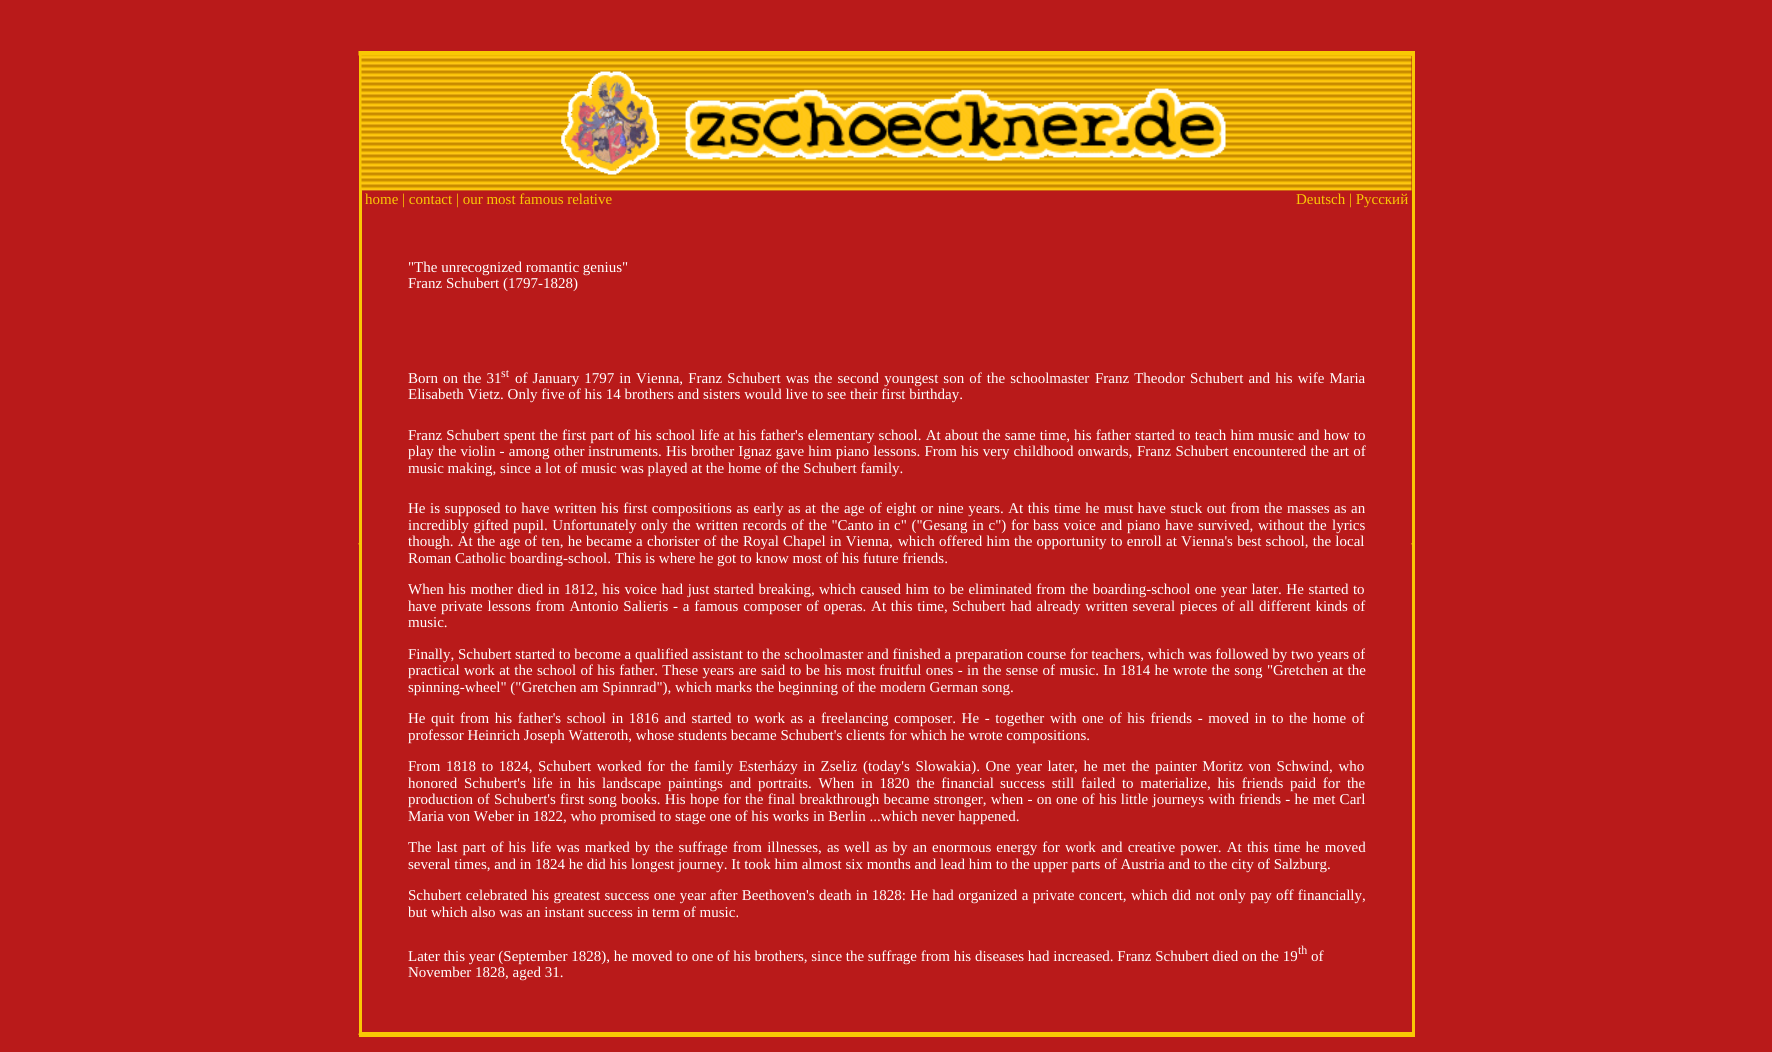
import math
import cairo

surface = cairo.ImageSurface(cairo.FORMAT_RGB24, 1772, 1052)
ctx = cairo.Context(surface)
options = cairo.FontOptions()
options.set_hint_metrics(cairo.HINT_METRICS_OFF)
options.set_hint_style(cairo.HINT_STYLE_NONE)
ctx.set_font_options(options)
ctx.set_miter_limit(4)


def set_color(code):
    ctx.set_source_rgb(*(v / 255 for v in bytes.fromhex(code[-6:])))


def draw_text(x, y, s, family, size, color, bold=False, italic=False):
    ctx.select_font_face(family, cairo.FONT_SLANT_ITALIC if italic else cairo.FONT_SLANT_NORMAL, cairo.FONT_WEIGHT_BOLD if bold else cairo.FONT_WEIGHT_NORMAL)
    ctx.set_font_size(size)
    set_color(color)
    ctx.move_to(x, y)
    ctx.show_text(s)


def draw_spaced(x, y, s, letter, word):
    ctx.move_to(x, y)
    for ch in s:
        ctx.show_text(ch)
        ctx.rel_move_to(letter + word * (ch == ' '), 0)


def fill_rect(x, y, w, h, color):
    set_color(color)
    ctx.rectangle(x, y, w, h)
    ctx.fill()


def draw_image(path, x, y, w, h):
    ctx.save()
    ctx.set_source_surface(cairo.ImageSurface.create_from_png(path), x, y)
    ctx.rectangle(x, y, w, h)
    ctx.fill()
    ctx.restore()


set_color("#b91a1a")
ctx.paint()
fill_rect(359, 51, 1056, 5, "#f9c804")
draw_image("assets/img1.png", 358, 51, 1, 5)
fill_rect(359, 56, 3, 981, "#f9c804")
draw_image("assets/img2.png", 358, 543, 1, 2)
draw_image("assets/img3.png", 361, 55, 1051, 136)
draw_image("assets/img4.png", 561, 71, 99, 104)
draw_image("assets/img5.png", 685, 88, 541, 73)
draw_text(365, 204, "home | contact | our most famous relative", "Liberation Serif", 15, "#f9c804")
draw_text(1296, 204, "Deutsch | Русский", "Liberation Serif", 15, "#f9c804")
draw_text(408, 272, "\"The unrecognized romantic genius\"", "Liberation Serif", 15, "#ffffff")
draw_text(408, 288, "Franz Schubert (1797-1828)", "Liberation Serif", 15, "#ffffff")
draw_spaced(408, 383, "Born on the 31", 0, 1.3)
draw_text(501, 377, "st", "Liberation Serif", 12, "#ffffff")
ctx.set_font_size(15)
draw_spaced(515, 383, "of January 1797 in Vienna, Franz Schubert was the second youngest son of the schoolmaster", 0, 1.3)
draw_spaced(1095, 383, "Franz Theodor Schubert and his wife Maria", 0, 1.3)
draw_text(408, 399, "Elisabeth Vietz. Only five of his 14 brothers and sisters would live to see their first birthday.", "Liberation Serif", 15, "#ffffff")
draw_spaced(408, 440, "Franz Schubert spent the", 0, 0.4)
draw_spaced(562, 440, "first part of his school life at his father's elementary school. At about the same time,", 0, 0.4)
draw_spaced(1074, 440, "his father started to teach him music and how to", 0, 0.4)
draw_spaced(408, 456, "play the violin - among other", 0, 0.4)
draw_spaced(588, 456, "instruments. His brother Ignaz gave him piano lessons. From his very childhood onwards,", 0, 0.4)
draw_spaced(1137, 456, "Franz Schubert encountered the art of", 0, 0.5)
draw_text(408, 473, "music making, since a lot of music was played at the home of the Schubert family.", "Liberation Serif", 15, "#ffffff")
draw_spaced(408, 513, "He is supposed to have written his first compositions as early as at", 0, 0.8)
draw_spaced(821, 513, "the age of eight or nine years. At this time he must have stuck out from the masses as an", 0, 0.8)
draw_spaced(408, 530, "incredibly gifted pupil. Unfortunately only the written records of the \"Canto in", 0, 0.9)
draw_spaced(894, 530, "c\" (\"Gesang in c\") for bass voice and piano have survived, without the", 0, 0.9)
draw_text(1332, 530, "lyrics", "Liberation Serif", 15, "#ffffff")
draw_spaced(408, 546, "though. At the age of ten, he became a chorister of the Royal Chapel in Vienna,", 0, 0.5)
draw_spaced(898, 546, "which offered him the opportunity to enroll at Vienna's best school, the local", 0, 0.5)
draw_text(408, 563, "Roman Catholic boarding-school. This is where he got to know most of his future friends.", "Liberation Serif", 15, "#ffffff")
draw_spaced(408, 594, "When his mother died in 1812, his voice had just started breaking,", 0, 0.8)
draw_spaced(819, 594, "which caused him to be eliminated from the boarding-school one year later. He started to", 0, 0.8)
draw_spaced(408, 611, "have private lessons from Antonio Salieris - a famous composer of operas. At this time,", 0, 1)
draw_spaced(952, 611, "Schubert had already written several pieces of all different kinds of", 0, 1)
draw_text(408, 627, "music.", "Liberation Serif", 15, "#ffffff")
draw_text(408, 659, "Finally, Schubert started to become a qualified assistant to the schoolmaster and finished a preparation course for teachers, which was followed by two years of", "Liberation Serif", 15, "#ffffff")
draw_spaced(408, 675, "practical work at the school of his father. These years are said to be his most", 0, 0.6)
draw_spaced(879, 675, "fruitful ones - in the sense of music. In 1814 he wrote the song \"Gretchen at the", 0, 0.6)
draw_text(408, 692, "spinning-wheel\" (\"Gretchen am Spinnrad\"), which marks the beginning of the modern German song.", "Liberation Serif", 15, "#ffffff")
draw_spaced(408, 723, "He quit from his father's school in 1816 and started to work as a", 0, 1.8)
draw_spaced(821, 723, "freelancing composer. He - together with one of his friends - moved in to the home of", 0, 1.8)
draw_text(408, 740, "professor Heinrich Joseph Watteroth, whose students became Schubert's clients for which he wrote compositions.", "Liberation Serif", 15, "#ffffff")
draw_spaced(408, 771, "From 1818 to 1824, Schubert worked for the family Esterházy in Zseliz", 0, 1.75)
draw_spaced(863, 771, "(today's Slowakia). One year later, he met the painter Moritz von Schwind, who", 0, 1.8)
draw_text(408, 788, "honored", "Liberation Serif", 15, "#ffffff")
draw_spaced(464, 788, "Schubert's life in his landscape paintings and portraits. When in 1820 the financial", 0, 3)
draw_spaced(1000, 788, "success still failed to materialize, his friends paid for the", 0, 3)
draw_spaced(408, 804, "production of Schubert's", 0, 0.5)
draw_spaced(560, 804, "first song books. His hope for the final breakthrough became stronger, when - on one of", 0, 0.5)
draw_spaced(1099, 804, "his little journeys with friends - he met Carl", 0, 0.5)
draw_text(408, 821, "Maria von Weber in 1822, who promised to stage one of his works in Berlin ...which never happened.", "Liberation Serif", 15, "#ffffff")
draw_spaced(408, 852, "The last part of his life was marked by the suffrage from illnesses, as", 0, 1.4)
draw_spaced(844, 852, "well as by an enormous energy for work and creative power. At this time he moved", 0, 1.4)
draw_text(408, 869, "several times, and in 1824 he did his longest journey. It took him almost six months and lead him to the upper parts of Austria and to the city of Salzburg.", "Liberation Serif", 15, "#ffffff")
draw_spaced(408, 900, "Schubert celebrated his greatest success one year after Beethoven's", 0, 0.6)
draw_spaced(819, 900, "death in 1828: He had organized a private concert, which did not only pay off financially,", 0, 0.6)
draw_text(408, 917, "but which also was an instant success in term of music.", "Liberation Serif", 15, "#ffffff")
draw_text(408, 961, "Later this year (September 1828), he moved to one of his brothers, since the suffrage from his diseases had increased. Franz Schubert died on the 19", "Liberation Serif", 15, "#ffffff")
draw_text(1298, 954, "th", "Liberation Serif", 12, "#ffffff")
draw_text(1311, 961, "of", "Liberation Serif", 15, "#ffffff")
draw_text(408, 977, "November 1828, aged 31.", "Liberation Serif", 15, "#ffffff")
fill_rect(1412, 56, 3, 976, "#f9c804")
draw_image("assets/img2.png", 1411, 543, 1, 2)
draw_image("assets/img6.png", 358, 1033, 1, 2)
fill_rect(362, 1032, 1053, 5, "#f9c804")
surface.write_to_png("output.png")
